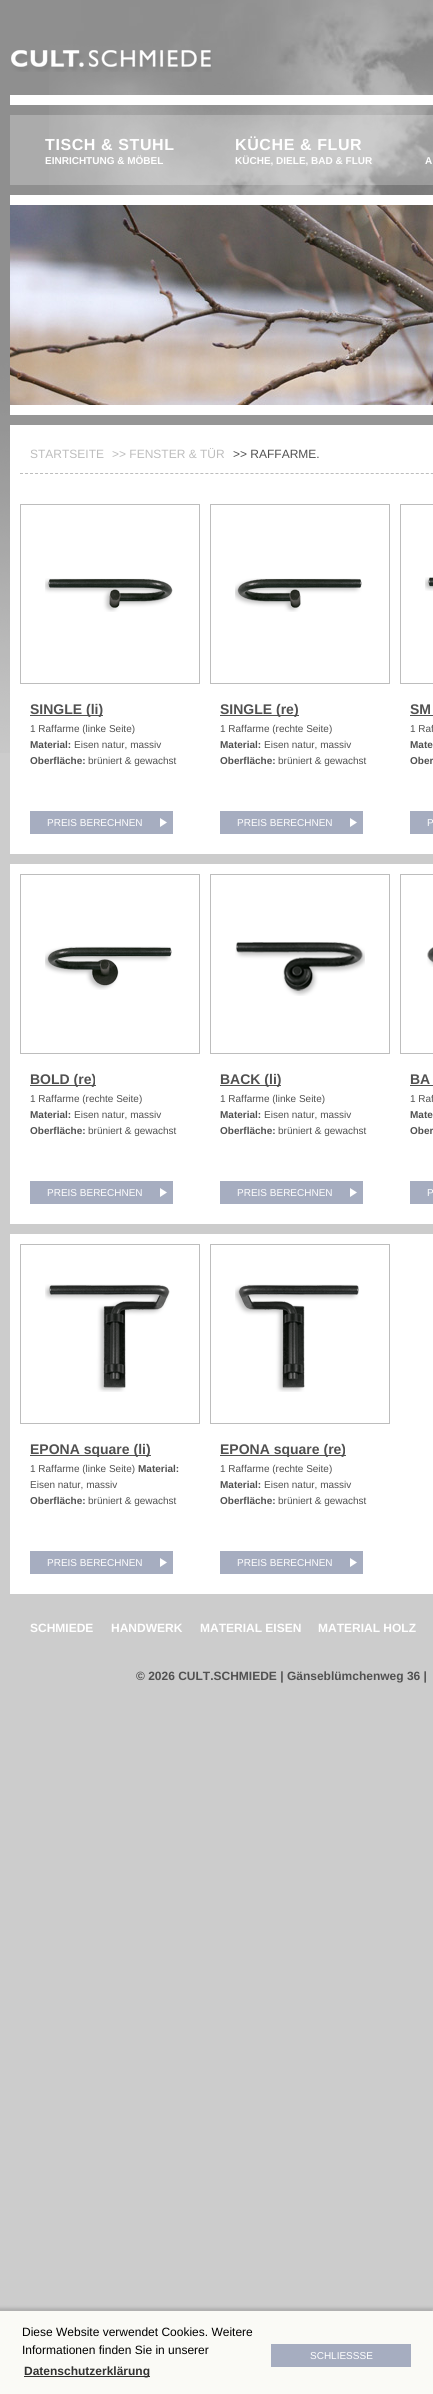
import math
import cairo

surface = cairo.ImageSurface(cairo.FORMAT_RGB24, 433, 2394)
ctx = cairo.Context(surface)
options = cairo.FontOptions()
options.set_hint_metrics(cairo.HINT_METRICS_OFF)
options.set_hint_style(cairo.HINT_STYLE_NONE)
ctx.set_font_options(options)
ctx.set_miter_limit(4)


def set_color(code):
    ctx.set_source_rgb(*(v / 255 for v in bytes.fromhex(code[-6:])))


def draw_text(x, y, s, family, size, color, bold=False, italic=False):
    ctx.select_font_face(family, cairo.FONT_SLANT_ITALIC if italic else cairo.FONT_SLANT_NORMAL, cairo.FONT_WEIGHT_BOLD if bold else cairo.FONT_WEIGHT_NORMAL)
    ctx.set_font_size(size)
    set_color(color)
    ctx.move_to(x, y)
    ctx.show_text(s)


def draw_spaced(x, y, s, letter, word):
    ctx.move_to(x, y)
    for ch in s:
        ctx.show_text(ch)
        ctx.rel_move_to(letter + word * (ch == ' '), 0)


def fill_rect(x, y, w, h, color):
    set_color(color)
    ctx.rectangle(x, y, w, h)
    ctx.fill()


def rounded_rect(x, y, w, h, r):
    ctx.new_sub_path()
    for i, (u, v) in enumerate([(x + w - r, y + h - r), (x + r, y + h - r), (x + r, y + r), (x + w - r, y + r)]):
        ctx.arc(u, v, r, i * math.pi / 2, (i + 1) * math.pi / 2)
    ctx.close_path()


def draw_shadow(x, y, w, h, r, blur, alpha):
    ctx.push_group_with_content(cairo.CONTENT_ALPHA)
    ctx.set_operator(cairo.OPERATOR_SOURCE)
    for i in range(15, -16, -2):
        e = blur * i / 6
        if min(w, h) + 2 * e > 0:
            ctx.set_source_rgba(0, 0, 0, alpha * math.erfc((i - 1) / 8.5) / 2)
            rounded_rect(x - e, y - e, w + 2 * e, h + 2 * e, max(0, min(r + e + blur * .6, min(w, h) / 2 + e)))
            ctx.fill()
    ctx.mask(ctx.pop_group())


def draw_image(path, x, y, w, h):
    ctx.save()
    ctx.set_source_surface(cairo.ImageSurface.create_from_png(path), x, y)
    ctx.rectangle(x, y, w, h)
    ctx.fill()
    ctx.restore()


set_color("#cccccc")
ctx.paint()
draw_image("assets/img1.png", 0, 0, 433, 753)
draw_image("assets/img2.png", 49, 0, 384, 195)
fill_rect(10, 95, 423, 10, "#ffffff")
draw_image("assets/img3.png", 11, 50, 201, 22)
ctx.set_source_rgba(1, 1, 1, 0.25)
ctx.rectangle(10, 115, 423, 70)
ctx.fill()
ctx.select_font_face("Liberation Sans", cairo.FONT_SLANT_NORMAL, cairo.FONT_WEIGHT_BOLD)
ctx.set_font_size(16)
set_color("#ffffff")
draw_spaced(45, 150, "TISCH & STUHL", 0.6, 0)
draw_text(45, 164, "EINRICHTUNG & MÖBEL", "Liberation Sans", 10, "#ffffff", bold=True)
ctx.set_font_size(16)
draw_spaced(235, 150, "KÜCHE & FLUR", 0.6, 0)
draw_text(235, 164, "KÜCHE, DIELE, BAD & FLUR", "Liberation Sans", 10, "#ffffff", bold=True)
draw_text(425, 164, "A", "Liberation Sans", 10, "#ffffff", bold=True)
fill_rect(10, 195, 423, 10, "#ffffff")
fill_rect(10, 405, 423, 10, "#ffffff")
draw_image("assets/img4.png", 10, 205, 423, 200)
fill_rect(10, 425, 423, 69, "#ffffff")
ctx.new_path()
ctx.move_to(20, 473.5)
ctx.line_to(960, 473.5)
set_color("#bdbdbd")
ctx.set_line_width(1)
ctx.set_dash([3, 2.01])
ctx.stroke()
draw_text(30, 458, "STARTSEITE", "Liberation Sans", 12, "#bdbdbd")
draw_text(112, 458, ">> FENSTER & TÜR", "Liberation Sans", 12, "#bdbdbd")
draw_text(233, 458, ">> RAFFARME.", "Liberation Sans", 12, "#515151")
fill_rect(10, 494, 423, 360, "#ffffff")
ctx.rectangle(20.5, 504.5, 179, 179)
set_color("#bdbdbd")
ctx.set_dash([])
ctx.stroke()
draw_image("assets/img5.png", 45, 578, 128, 34)
fill_rect(30, 715, 73, 1, "#515151")
draw_text(30, 714, "SINGLE (li)", "Liberation Sans", 14, "#515151", bold=True)
draw_text(30, 732, "1 Raffarme (linke Seite)", "Liberation Sans", 10, "#515151")
draw_text(30, 748, "Material:", "Liberation Sans", 10, "#515151", bold=True)
draw_text(74, 748, "Eisen natur, massiv", "Liberation Sans", 10, "#515151")
draw_text(30, 764, "Oberfläche:", "Liberation Sans", 10, "#515151", bold=True)
draw_text(88, 764, "brüniert & gewachst", "Liberation Sans", 10, "#515151")
fill_rect(30, 811, 143, 23, "#a6adc0")
draw_image("assets/img6.png", 160, 818, 7, 9)
draw_text(47, 826, "PREIS BERECHNEN", "Liberation Sans", 10, "#ffffff")
ctx.rectangle(210.5, 504.5, 179, 179)
set_color("#bdbdbd")
ctx.stroke()
draw_image("assets/img7.png", 235, 578, 127, 34)
fill_rect(220, 715, 79, 1, "#515151")
draw_text(220, 714, "SINGLE (re)", "Liberation Sans", 14, "#515151", bold=True)
draw_text(220, 732, "1 Raffarme (rechte Seite)", "Liberation Sans", 10, "#515151")
draw_text(220, 748, "Material:", "Liberation Sans", 10, "#515151", bold=True)
draw_text(264, 748, "Eisen natur, massiv", "Liberation Sans", 10, "#515151")
draw_text(220, 764, "Oberfläche:", "Liberation Sans", 10, "#515151", bold=True)
draw_text(278, 764, "brüniert & gewachst", "Liberation Sans", 10, "#515151")
fill_rect(220, 811, 143, 23, "#a6adc0")
draw_image("assets/img6.png", 350, 818, 7, 9)
draw_text(237, 826, "PREIS BERECHNEN", "Liberation Sans", 10, "#ffffff")
ctx.rectangle(400.5, 504.5, 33, 179)
set_color("#bdbdbd")
ctx.stroke()
draw_image("assets/img8.png", 425, 577, 8, 14)
draw_text(410, 714, "SM", "Liberation Sans", 14, "#515151", bold=True)
fill_rect(410, 715, 23, 1, "#515151")
draw_text(410, 732, "1 Raf", "Liberation Sans", 10, "#515151")
draw_text(410, 748, "Mate", "Liberation Sans", 10, "#515151", bold=True)
draw_text(410, 764, "Ober", "Liberation Sans", 10, "#515151", bold=True)
fill_rect(410, 811, 23, 23, "#a6adc0")
draw_text(427, 826, "P", "Liberation Sans", 10, "#ffffff")
fill_rect(10, 864, 423, 360, "#ffffff")
ctx.rectangle(20.5, 874.5, 179, 179)
set_color("#bdbdbd")
ctx.stroke()
draw_image("assets/img9.png", 45, 946, 127, 44)
fill_rect(30, 1085, 66, 1, "#515151")
draw_text(30, 1084, "BOLD (re)", "Liberation Sans", 14, "#515151", bold=True)
draw_text(30, 1102, "1 Raffarme (rechte Seite)", "Liberation Sans", 10, "#515151")
draw_text(30, 1118, "Material:", "Liberation Sans", 10, "#515151", bold=True)
draw_text(74, 1118, "Eisen natur, massiv", "Liberation Sans", 10, "#515151")
draw_text(30, 1134, "Oberfläche:", "Liberation Sans", 10, "#515151", bold=True)
draw_text(88, 1134, "brüniert & gewachst", "Liberation Sans", 10, "#515151")
fill_rect(30, 1181, 143, 23, "#a6adc0")
draw_image("assets/img6.png", 160, 1188, 7, 9)
draw_text(47, 1196, "PREIS BERECHNEN", "Liberation Sans", 10, "#ffffff")
ctx.rectangle(210.5, 874.5, 179, 179)
set_color("#bdbdbd")
ctx.stroke()
draw_image("assets/img10.png", 235, 942, 130, 54)
fill_rect(220, 1085, 61, 1, "#515151")
draw_text(220, 1084, "BACK (li)", "Liberation Sans", 14, "#515151", bold=True)
draw_text(220, 1102, "1 Raffarme (linke Seite)", "Liberation Sans", 10, "#515151")
draw_text(220, 1118, "Material:", "Liberation Sans", 10, "#515151", bold=True)
draw_text(264, 1118, "Eisen natur, massiv", "Liberation Sans", 10, "#515151")
draw_text(220, 1134, "Oberfläche:", "Liberation Sans", 10, "#515151", bold=True)
draw_text(278, 1134, "brüniert & gewachst", "Liberation Sans", 10, "#515151")
fill_rect(220, 1181, 143, 23, "#a6adc0")
draw_image("assets/img6.png", 350, 1188, 7, 9)
draw_text(237, 1196, "PREIS BERECHNEN", "Liberation Sans", 10, "#ffffff")
ctx.rectangle(400.5, 874.5, 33, 179)
set_color("#bdbdbd")
ctx.stroke()
draw_image("assets/img11.png", 427, 947, 6, 20)
draw_text(410, 1084, "BA", "Liberation Sans", 14, "#515151", bold=True)
fill_rect(410, 1085, 23, 1, "#515151")
draw_text(410, 1102, "1 Raf", "Liberation Sans", 10, "#515151")
draw_text(410, 1118, "Mate", "Liberation Sans", 10, "#515151", bold=True)
draw_text(410, 1134, "Ober", "Liberation Sans", 10, "#515151", bold=True)
fill_rect(410, 1181, 23, 23, "#a6adc0")
draw_text(427, 1196, "P", "Liberation Sans", 10, "#ffffff")
fill_rect(10, 1234, 423, 360, "#ffffff")
ctx.rectangle(20.5, 1244.5, 179, 179)
set_color("#bdbdbd")
ctx.stroke()
draw_image("assets/img12.png", 45, 1284, 125, 108)
fill_rect(30, 1455, 121, 1, "#515151")
draw_text(30, 1454, "EPONA square (li)", "Liberation Sans", 14, "#515151", bold=True)
draw_text(30, 1472, "1 Raffarme (linke Seite)", "Liberation Sans", 10, "#515151")
draw_text(138, 1472, "Material:", "Liberation Sans", 10, "#515151", bold=True)
draw_text(30, 1488, "Eisen natur, massiv", "Liberation Sans", 10, "#515151")
draw_text(30, 1504, "Oberfläche:", "Liberation Sans", 10, "#515151", bold=True)
draw_text(88, 1504, "brüniert & gewachst", "Liberation Sans", 10, "#515151")
fill_rect(30, 1551, 143, 23, "#a6adc0")
draw_image("assets/img6.png", 160, 1558, 7, 9)
draw_text(47, 1566, "PREIS BERECHNEN", "Liberation Sans", 10, "#ffffff")
ctx.rectangle(210.5, 1244.5, 179, 179)
set_color("#bdbdbd")
ctx.stroke()
draw_image("assets/img13.png", 235, 1284, 124, 108)
fill_rect(220, 1455, 126, 1, "#515151")
draw_text(220, 1454, "EPONA square (re)", "Liberation Sans", 14, "#515151", bold=True)
draw_text(220, 1472, "1 Raffarme (rechte Seite)", "Liberation Sans", 10, "#515151")
draw_text(220, 1488, "Material:", "Liberation Sans", 10, "#515151", bold=True)
draw_text(264, 1488, "Eisen natur, massiv", "Liberation Sans", 10, "#515151")
draw_text(220, 1504, "Oberfläche:", "Liberation Sans", 10, "#515151", bold=True)
draw_text(278, 1504, "brüniert & gewachst", "Liberation Sans", 10, "#515151")
fill_rect(220, 1551, 143, 23, "#a6adc0")
draw_image("assets/img6.png", 350, 1558, 7, 9)
draw_text(237, 1566, "PREIS BERECHNEN", "Liberation Sans", 10, "#ffffff")
draw_text(30, 1632, "SCHMIEDE", "Liberation Sans", 12, "#ffffff", bold=True)
draw_text(111, 1632, "HANDWERK", "Liberation Sans", 12, "#ffffff", bold=True)
draw_text(200, 1632, "MATERIAL EISEN", "Liberation Sans", 12, "#ffffff", bold=True)
draw_text(318, 1632, "MATERIAL HOLZ", "Liberation Sans", 12, "#ffffff", bold=True)
draw_text(136, 1680, "© 2026 CULT.SCHMIEDE | Gänseblümchenweg 36 |", "Liberation Sans", 12, "#515151", bold=True)
set_color("#000000")
draw_shadow(-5, 2308, 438, 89, 0, 1.5, 0.15)
fill_rect(0, 2311, 433, 83, "#fafaf6")
draw_text(22, 2336, "Diese Website verwendet Cookies. Weitere", "Liberation Sans", 12, "#000000")
draw_text(22, 2354, "Informationen finden Sie in unserer", "Liberation Sans", 12, "#000000")
fill_rect(24, 2376, 126, 1, "#323231")
draw_text(24, 2375, "Datenschutzerklärung", "Liberation Sans", 12, "#323231", bold=True)
fill_rect(271, 2344, 140, 23, "#a6adc0")
draw_text(310, 2359, "SCHLIESSSE", "Liberation Sans", 10, "#ffffff")
surface.write_to_png("output.png")
